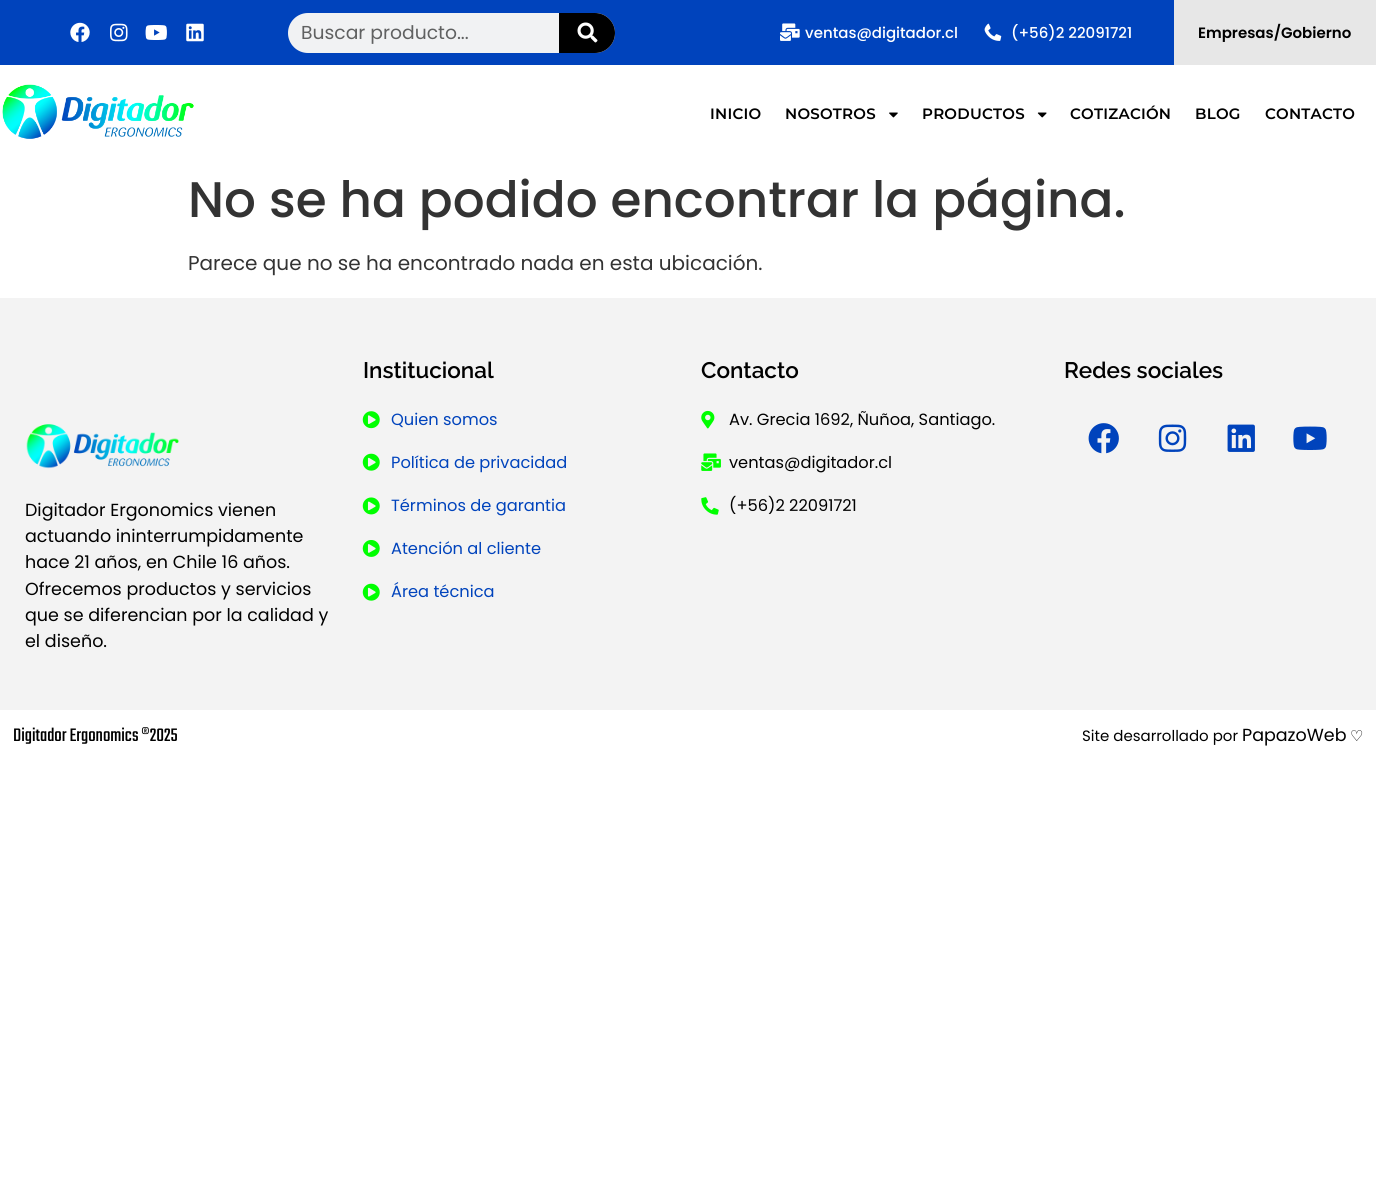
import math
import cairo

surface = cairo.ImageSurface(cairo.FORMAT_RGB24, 1376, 1183)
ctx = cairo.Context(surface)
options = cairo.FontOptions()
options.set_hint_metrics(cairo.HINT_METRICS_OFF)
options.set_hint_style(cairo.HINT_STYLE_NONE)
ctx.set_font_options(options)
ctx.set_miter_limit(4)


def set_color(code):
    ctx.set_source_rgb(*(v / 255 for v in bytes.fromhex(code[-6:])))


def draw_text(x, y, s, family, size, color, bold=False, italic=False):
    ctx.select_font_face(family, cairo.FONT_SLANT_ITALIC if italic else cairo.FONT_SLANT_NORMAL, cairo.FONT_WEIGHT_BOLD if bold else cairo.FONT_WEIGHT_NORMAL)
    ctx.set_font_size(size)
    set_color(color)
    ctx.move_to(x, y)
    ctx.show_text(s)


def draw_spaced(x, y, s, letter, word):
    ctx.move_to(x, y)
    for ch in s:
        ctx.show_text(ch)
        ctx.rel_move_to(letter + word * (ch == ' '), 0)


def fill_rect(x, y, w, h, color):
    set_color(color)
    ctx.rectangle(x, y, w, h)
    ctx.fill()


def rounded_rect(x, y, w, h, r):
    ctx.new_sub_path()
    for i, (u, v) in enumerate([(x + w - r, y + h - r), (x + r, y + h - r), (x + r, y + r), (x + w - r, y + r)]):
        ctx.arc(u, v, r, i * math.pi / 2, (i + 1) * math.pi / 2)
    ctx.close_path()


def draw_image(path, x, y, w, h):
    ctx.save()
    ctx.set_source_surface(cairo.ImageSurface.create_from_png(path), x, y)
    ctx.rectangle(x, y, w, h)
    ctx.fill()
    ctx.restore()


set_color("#ffffff")
ctx.paint()
fill_rect(0, 0, 1174, 65, "#0043bc")
draw_image("assets/img1.png", 70, 22, 20, 20)
draw_image("assets/img2.png", 110, 23, 18, 19)
draw_image("assets/img3.png", 145, 25, 22, 15)
draw_image("assets/img4.png", 186, 23, 18, 19)
fill_rect(1174, 0, 202, 65, "#e7e7e7")
draw_text(1198, 38, "Empresas/Gobierno", "Poppins SemiBold", 15, "#000000")
set_color("#f1f2f3")
rounded_rect(288, 13, 327, 40, 20)
ctx.fill()
draw_text(301, 39, "Buscar producto...", "Poppins", 18.75, "#606161")
set_color("#000000")
ctx.new_path()
ctx.move_to(559, 13)
ctx.line_to(595, 13)
ctx.curve_to(606, 13, 615, 22, 615, 33)
ctx.curve_to(615, 44, 606, 53, 595, 53)
ctx.line_to(559, 53)
ctx.close_path()
ctx.fill()
draw_image("assets/img5.png", 577, 22, 21, 21)
draw_image("assets/img6.png", 780, 23, 20, 18)
draw_text(805, 38, "ventas@digitador.cl", "Poppins Medium", 15, "#ffffff")
draw_image("assets/img7.png", 984, 23, 18, 18)
draw_text(1011, 38, "(+56)2 22091721", "Poppins Medium", 15, "#ffffff")
draw_image("assets/img8.png", 2, 84, 192, 55)
ctx.select_font_face("Montserrat SemiBold")
set_color("#000000")
draw_spaced(710, 119, "INICIO", 0.25, 0)
draw_spaced(785, 119, "NOSOTROS", 0.25, 0)
draw_image("assets/img9.png", 889, 112, 9, 6)
draw_spaced(922, 119, "PRODUCTOS", 0.25, 0)
draw_image("assets/img10.png", 1037, 112, 10, 6)
draw_spaced(1070, 119, "COTIZACIÓN", 0.25, 0)
draw_spaced(1195, 119, "BLOG", 0.25, 0)
draw_spaced(1265, 119, "CONTACTO", 0.25, 0)
draw_text(188, 217, "No se ha podido encontrar la página.", "Poppins Medium", 50, "#333333")
draw_text(188, 270, "Parece que no se ha encontrado nada en esta ubicación.", "Poppins", 20, "#333333")
fill_rect(0, 298, 1376, 412, "#f3f3f3")
draw_text(363, 378, "Institucional", "Raleway SemiBold", 22.5, "#000000")
draw_image("assets/img11.png", 362, 411, 18, 18)
draw_text(391, 425, "Quien somos", "Poppins", 16.25, "#0043bc")
draw_image("assets/img12.png", 362, 453, 18, 18)
draw_text(391, 468, "Política de privacidad", "Poppins", 16.25, "#0043bc")
draw_image("assets/img13.png", 362, 497, 18, 18)
draw_text(391, 511, "Términos de garantia", "Poppins", 16.25, "#0043bc")
draw_image("assets/img14.png", 362, 540, 18, 17)
draw_text(391, 554, "Atención al cliente", "Poppins", 16.25, "#0043bc")
draw_image("assets/img12.png", 362, 583, 18, 18)
draw_text(391, 597, "Área técnica", "Poppins", 16.25, "#0043bc")
draw_text(701, 378, "Contacto", "Raleway SemiBold", 22.5, "#000000")
draw_image("assets/img15.png", 701, 410, 14, 19)
draw_text(729, 425, "Av. Grecia 1692, Ñuñoa, Santiago.", "Poppins", 16.25, "#000000")
draw_image("assets/img16.png", 701, 453, 20, 18)
draw_text(729, 468, "ventas@digitador.cl", "Poppins", 16.25, "#000000")
draw_image("assets/img17.png", 701, 497, 18, 18)
draw_text(729, 511, "(+56)2 22091721", "Poppins", 16.25, "#000000")
draw_text(1064, 378, "Redes sociales", "Raleway SemiBold", 22.5, "#000000")
draw_image("assets/img18.png", 1088, 423, 31, 31)
draw_image("assets/img19.png", 1158, 424, 29, 28)
draw_image("assets/img20.png", 1227, 424, 28, 28)
draw_image("assets/img21.png", 1293, 426, 34, 24)
draw_image("assets/img22.png", 26, 424, 153, 45)
draw_text(25, 516, "Digitador Ergonomics vienen", "Poppins", 17.5, "#000000")
draw_text(25, 542, "actuando ininterrumpidamente", "Poppins", 17.5, "#000000")
draw_text(25, 568, "hace 21 años, en Chile 16 años.", "Poppins", 17.5, "#000000")
draw_text(25, 595, "Ofrecemos productos y servicios", "Poppins", 17.5, "#000000")
draw_text(25, 621, "que se diferencian por la calidad y", "Poppins", 17.5, "#000000")
draw_text(25, 647, "el diseño.", "Poppins", 17.5, "#000000")
draw_text(13, 741, "Digitador Ergonomics ®2025", "Teko", 20, "#000000")
draw_text(1082, 741, "Site desarrollado por", "Poppins", 15, "#000000")
draw_text(1242, 741, "PapazoWeb", "Poppins", 17.5, "#000000")
draw_text(1350, 741, "♡", "DejaVu Sans", 15, "#000000")
surface.write_to_png("output.png")
